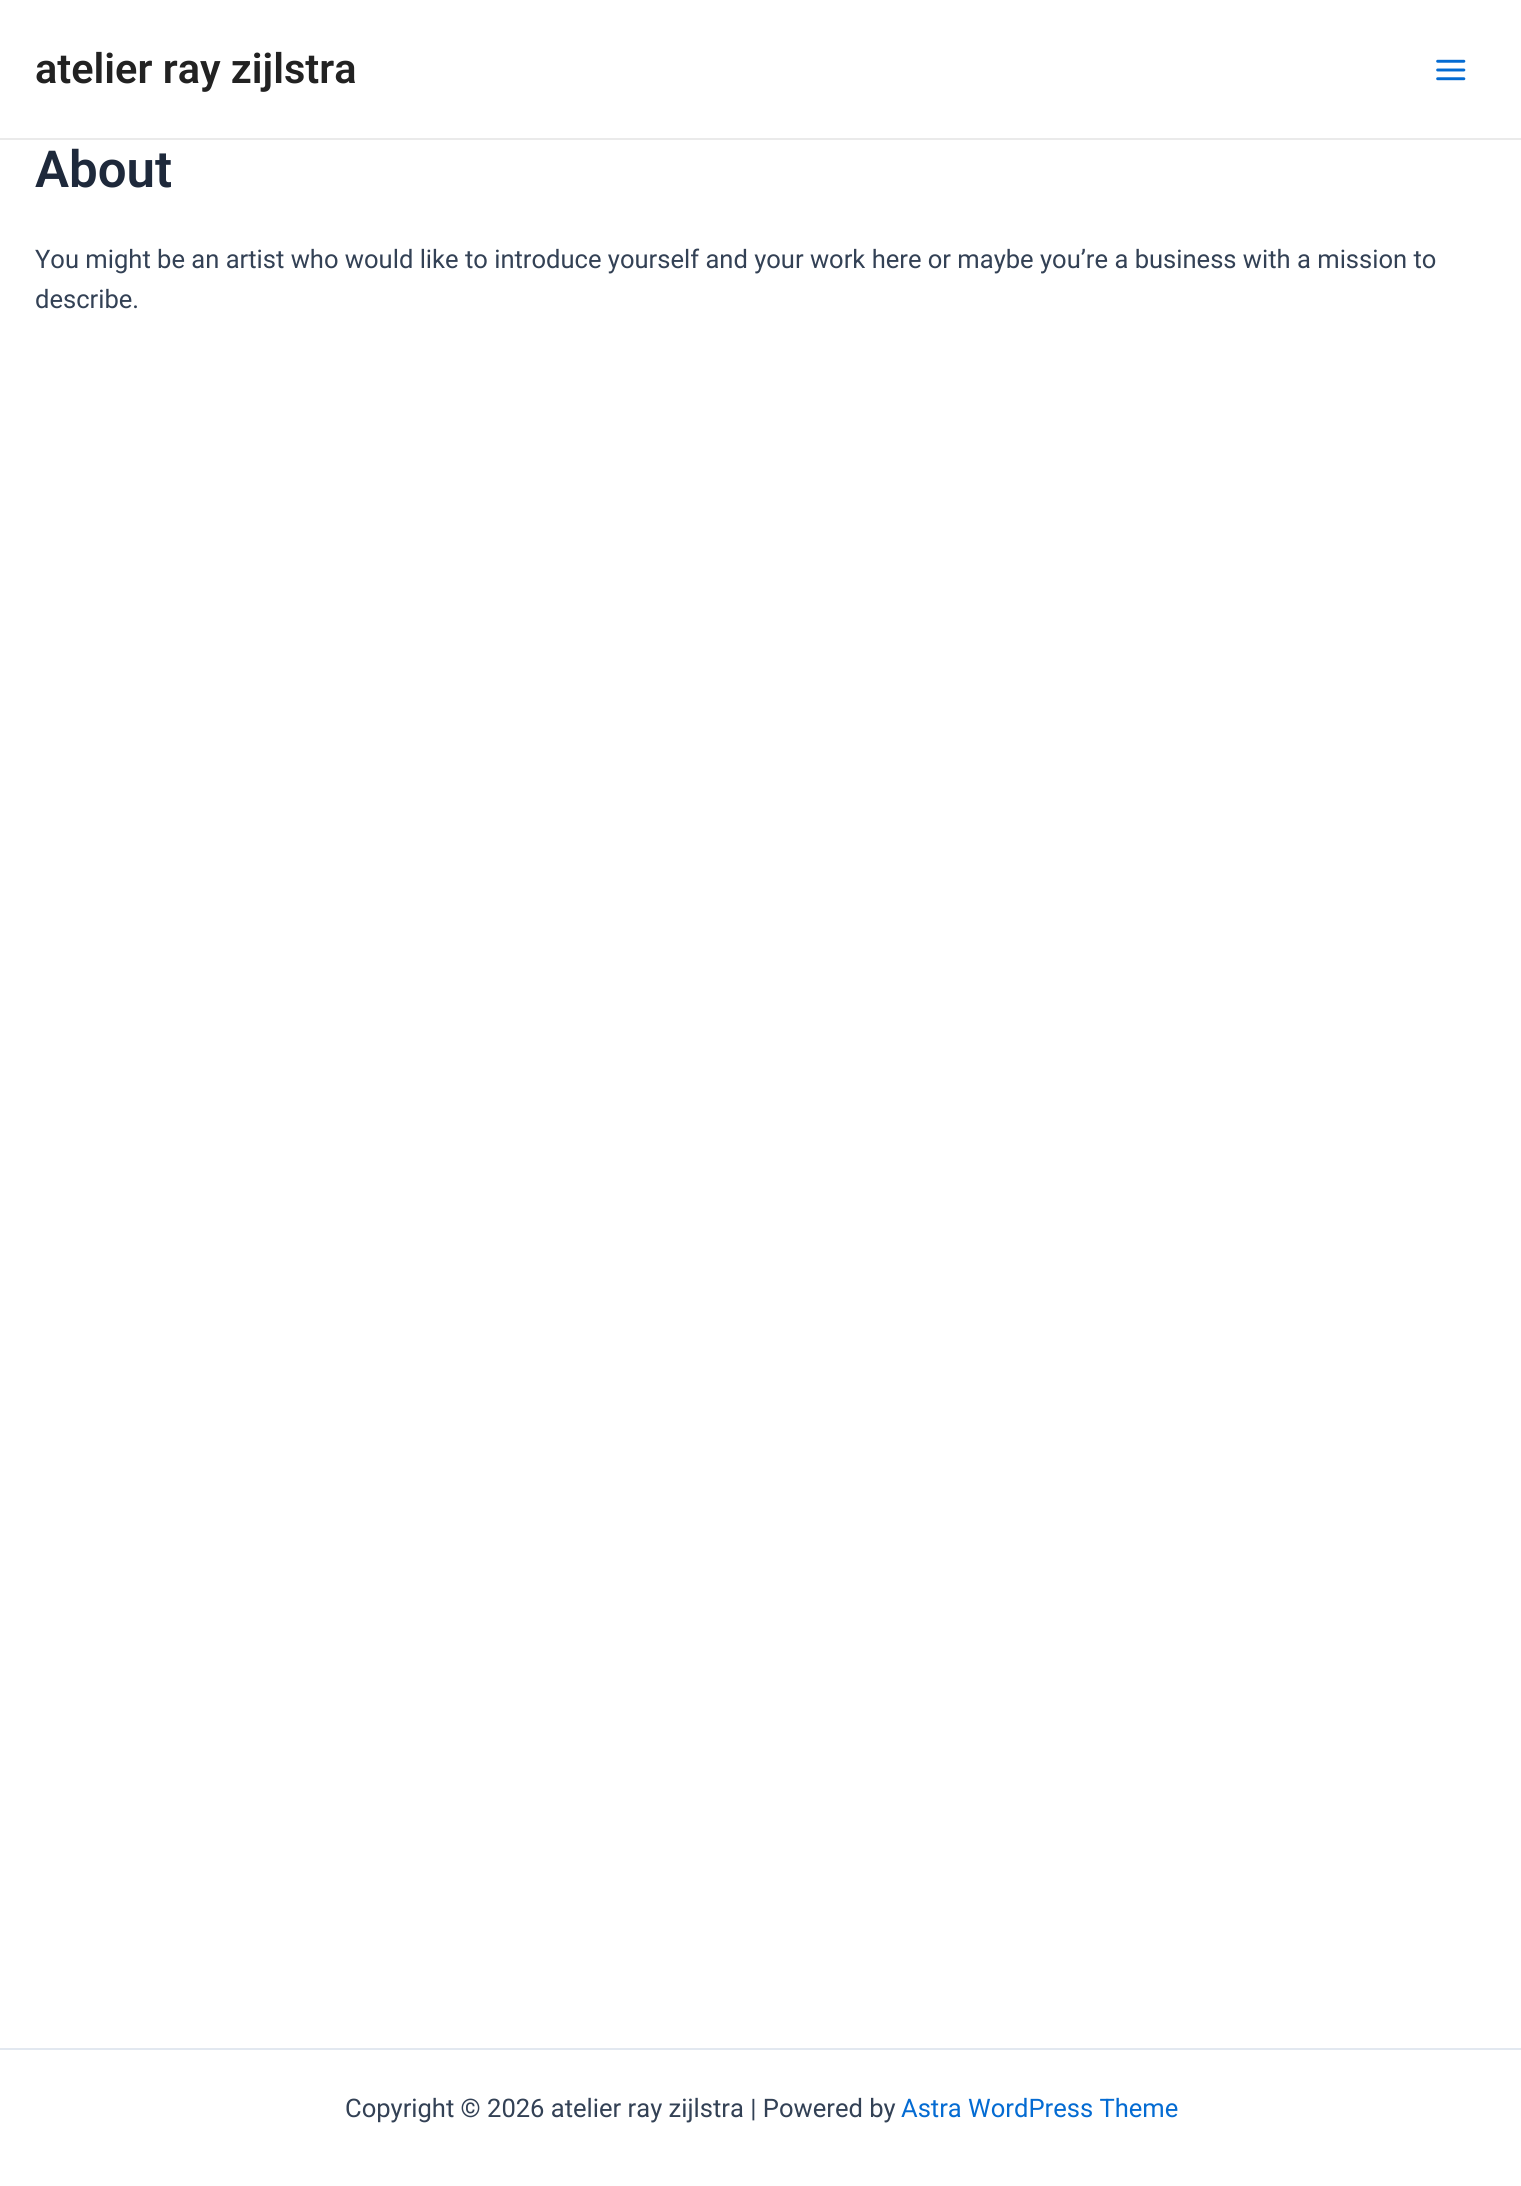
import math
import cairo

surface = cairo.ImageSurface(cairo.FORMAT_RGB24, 1521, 2186)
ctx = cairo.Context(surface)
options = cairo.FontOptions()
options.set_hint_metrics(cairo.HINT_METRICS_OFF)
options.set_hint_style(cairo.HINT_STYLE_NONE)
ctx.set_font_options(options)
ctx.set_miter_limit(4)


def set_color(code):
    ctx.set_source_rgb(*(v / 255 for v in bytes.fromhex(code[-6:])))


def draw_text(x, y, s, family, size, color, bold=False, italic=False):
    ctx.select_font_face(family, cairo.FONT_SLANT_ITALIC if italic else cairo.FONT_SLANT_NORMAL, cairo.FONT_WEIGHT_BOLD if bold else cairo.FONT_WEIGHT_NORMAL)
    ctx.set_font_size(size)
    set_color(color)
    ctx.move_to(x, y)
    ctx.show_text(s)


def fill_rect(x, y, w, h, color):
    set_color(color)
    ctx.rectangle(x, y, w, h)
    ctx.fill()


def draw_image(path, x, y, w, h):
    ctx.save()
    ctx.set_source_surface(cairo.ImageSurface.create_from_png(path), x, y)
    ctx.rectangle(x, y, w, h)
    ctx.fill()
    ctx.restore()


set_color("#ffffff")
ctx.paint()
fill_rect(0, 138, 1521, 2, "#eaeaea")
draw_text(35, 83, "atelier ray zijlstra", "Roboto SemiBold", 41.5, "#222222")
draw_image("assets/img1.png", 1436, 59, 30, 22)
draw_text(35, 187, "About", "Roboto SemiBold", 51, "#1e293b")
draw_text(35, 268, "You might be an artist who would like to introduce yourself and your work here or maybe you’re a business with a mission to", "Roboto", 25.55, "#334155")
draw_text(35, 308, "describe.", "Roboto", 25.55, "#334155")
fill_rect(0, 2048, 1521, 2, "#e2e8f0")
draw_text(345, 2117, "Copyright © 2026 atelier ray zijlstra | Powered by", "Roboto", 25.55, "#334155")
draw_text(901, 2117, "Astra WordPress Theme", "Roboto", 25.55, "#046bd2")
surface.write_to_png("output.png")
